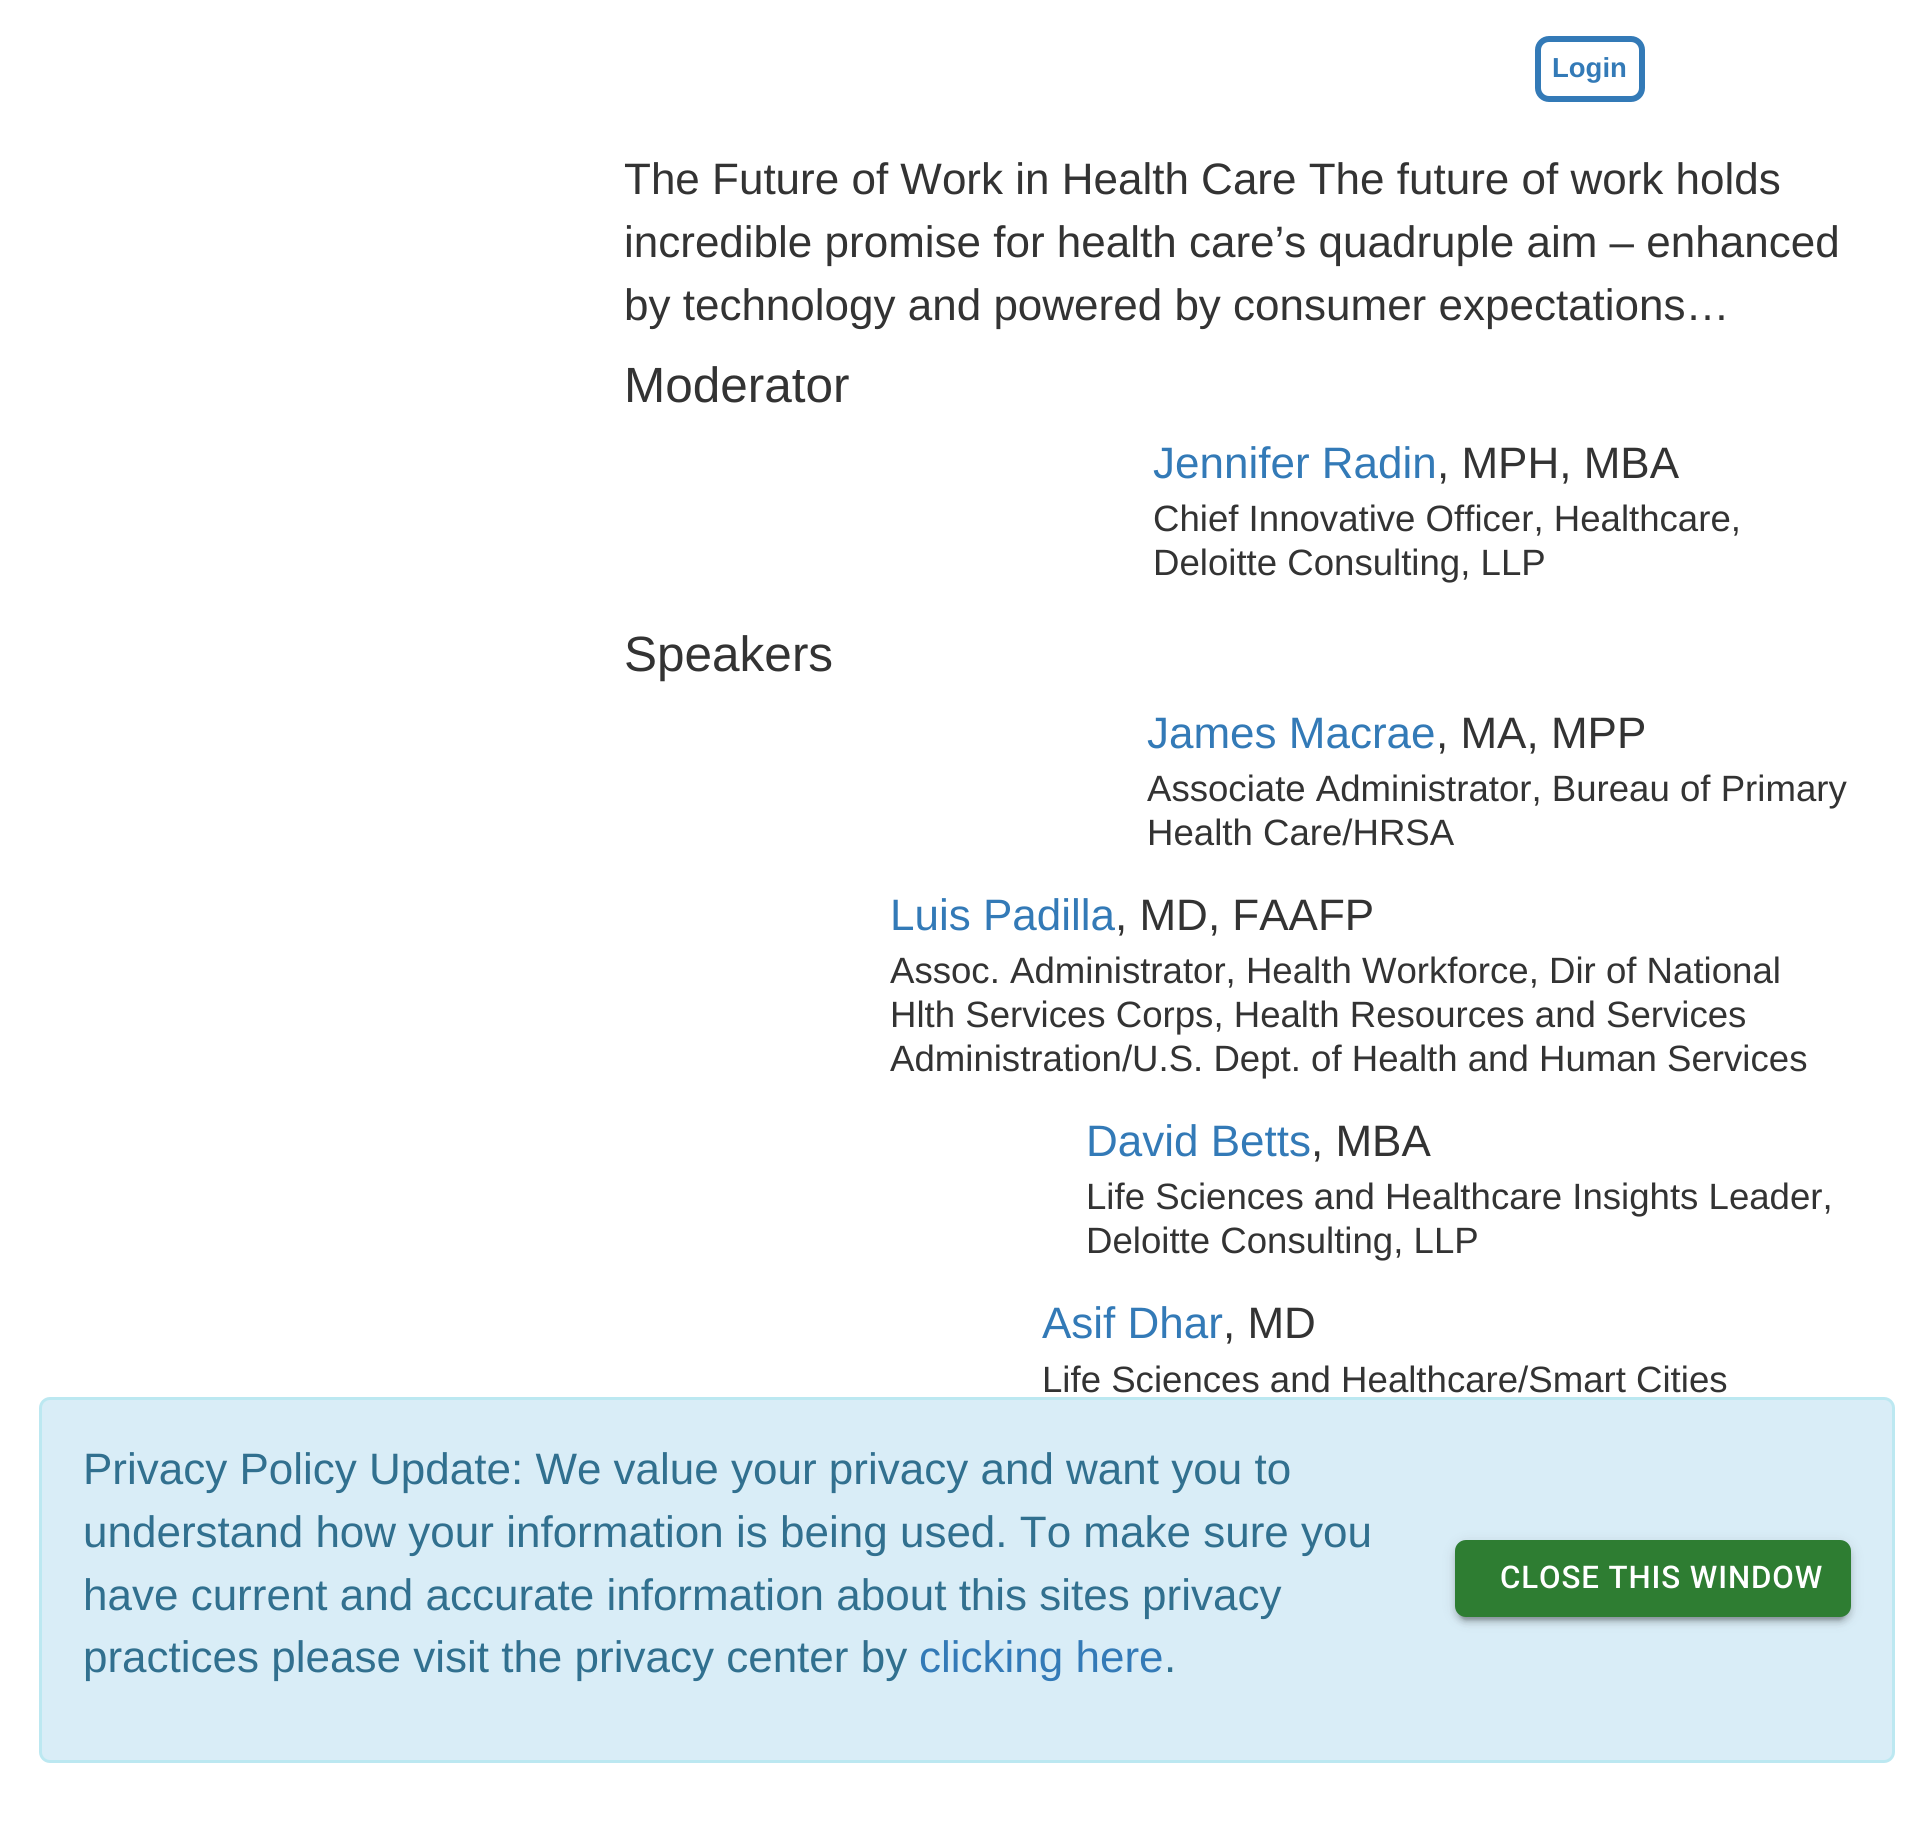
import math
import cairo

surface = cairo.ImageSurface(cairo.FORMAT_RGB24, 1932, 1831)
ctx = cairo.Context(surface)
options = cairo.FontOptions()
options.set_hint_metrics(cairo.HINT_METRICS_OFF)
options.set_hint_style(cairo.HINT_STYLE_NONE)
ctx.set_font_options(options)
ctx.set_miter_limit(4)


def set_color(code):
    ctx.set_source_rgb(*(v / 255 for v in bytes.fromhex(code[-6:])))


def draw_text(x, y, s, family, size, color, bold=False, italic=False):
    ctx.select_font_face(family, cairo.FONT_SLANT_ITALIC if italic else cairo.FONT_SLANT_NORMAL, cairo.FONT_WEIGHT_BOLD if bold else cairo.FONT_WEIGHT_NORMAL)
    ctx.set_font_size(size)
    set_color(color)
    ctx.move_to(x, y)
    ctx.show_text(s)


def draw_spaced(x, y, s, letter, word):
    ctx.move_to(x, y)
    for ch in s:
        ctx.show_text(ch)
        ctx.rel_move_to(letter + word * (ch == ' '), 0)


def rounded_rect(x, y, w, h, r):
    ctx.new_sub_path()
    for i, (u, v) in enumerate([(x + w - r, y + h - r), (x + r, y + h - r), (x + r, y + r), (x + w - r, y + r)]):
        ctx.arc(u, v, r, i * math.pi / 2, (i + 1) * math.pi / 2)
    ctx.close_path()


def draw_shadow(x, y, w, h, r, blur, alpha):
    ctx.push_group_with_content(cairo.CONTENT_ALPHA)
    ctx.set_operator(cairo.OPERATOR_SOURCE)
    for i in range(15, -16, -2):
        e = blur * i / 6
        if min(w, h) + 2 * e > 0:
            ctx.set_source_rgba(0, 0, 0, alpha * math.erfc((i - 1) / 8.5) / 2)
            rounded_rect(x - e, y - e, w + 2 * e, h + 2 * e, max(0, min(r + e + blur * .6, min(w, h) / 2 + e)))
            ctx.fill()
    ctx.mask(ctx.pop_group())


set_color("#ffffff")
ctx.paint()
rounded_rect(1538, 39, 104, 60, 11)
set_color("#337ab7")
ctx.set_line_width(6)
ctx.stroke()
draw_text(1552, 77, "Login", "Liberation Sans", 27.5, "#337ab7", bold=True)
draw_text(624, 194, "The Future of Work in Health Care The future of work holds", "Liberation Sans", 44, "#333333")
draw_text(624, 257, "incredible promise for health care’s quadruple aim – enhanced", "Liberation Sans", 44, "#333333")
draw_text(624, 320, "by technology and powered by consumer expectations…", "Liberation Sans", 44, "#333333")
draw_text(624, 402, "Moderator", "Liberation Sans", 49.5, "#333333")
draw_text(1153, 478, "Jennifer Radin", "Liberation Sans", 44, "#337ab7")
draw_text(1437, 478, ", MPH, MBA", "Liberation Sans", 44, "#333333")
draw_text(1153, 531, "Chief Innovative Officer, Healthcare,", "Liberation Sans", 36.6, "#333333")
draw_text(1153, 575, "Deloitte Consulting, LLP", "Liberation Sans", 36.6, "#333333")
draw_text(624, 671, "Speakers", "Liberation Sans", 49.5, "#333333")
draw_text(1147, 748, "James Macrae", "Liberation Sans", 44, "#337ab7")
draw_text(1436, 748, ", MA, MPP", "Liberation Sans", 44, "#333333")
draw_text(1147, 801, "Associate Administrator, Bureau of Primary", "Liberation Sans", 36.6, "#333333")
draw_text(1147, 845, "Health Care/HRSA", "Liberation Sans", 36.6, "#333333")
draw_text(890, 930, "Luis Padilla", "Liberation Sans", 44, "#337ab7")
draw_text(1115, 930, ", MD, FAAFP", "Liberation Sans", 44, "#333333")
draw_text(890, 983, "Assoc. Administrator, Health Workforce, Dir of National", "Liberation Sans", 36.6, "#333333")
draw_text(890, 1027, "Hlth Services Corps, Health Resources and Services", "Liberation Sans", 36.6, "#333333")
draw_text(890, 1071, "Administration/U.S. Dept. of Health and Human Services", "Liberation Sans", 36.6, "#333333")
draw_text(1086, 1156, "David Betts", "Liberation Sans", 44, "#337ab7")
draw_text(1311, 1156, ", MBA", "Liberation Sans", 44, "#333333")
draw_text(1086, 1209, "Life Sciences and Healthcare Insights Leader,", "Liberation Sans", 36.6, "#333333")
draw_text(1086, 1253, "Deloitte Consulting, LLP", "Liberation Sans", 36.6, "#333333")
draw_text(1042, 1338, "Asif Dhar", "Liberation Sans", 44, "#337ab7")
draw_text(1223, 1338, ", MD", "Liberation Sans", 44, "#333333")
draw_text(1042, 1392, "Life Sciences and Healthcare/Smart Cities", "Liberation Sans", 36.6, "#333333")
set_color("#d9edf7")
rounded_rect(40.5, 1398.5, 1853, 363, 9.5)
ctx.fill_preserve()
set_color("#bce8f1")
ctx.set_line_width(3)
ctx.stroke()
draw_text(83, 1484, "Privacy Policy Update: We value your privacy and want you to", "Liberation Sans", 44, "#31708f")
draw_text(83, 1547, "understand how your information is being used. To make sure you", "Liberation Sans", 44, "#31708f")
draw_text(83, 1610, "have current and accurate information about this sites privacy", "Liberation Sans", 44, "#31708f")
draw_text(83, 1672, "practices please visit the privacy center by", "Liberation Sans", 44, "#31708f")
draw_text(919, 1672, "clicking here", "Liberation Sans", 44, "#337ab7")
draw_text(1164, 1672, ".", "Liberation Sans", 44, "#31708f")
set_color("#000000")
draw_shadow(1455, 1543, 396, 77, 11, 7, 0.12)
draw_shadow(1455, 1546, 396, 77, 11, 3, 0.14)
draw_shadow(1460, 1554, 385, 66, 6, 1.5, 0.2)
set_color("#2e7d32")
rounded_rect(1455, 1540, 396, 77, 11)
ctx.fill()
ctx.select_font_face("Roboto Medium")
ctx.set_font_size(31.25)
set_color("#ffffff")
draw_spaced(1500, 1588, "CLOSE THIS WINDOW", 0.9, 0)
surface.write_to_png("output.png")
